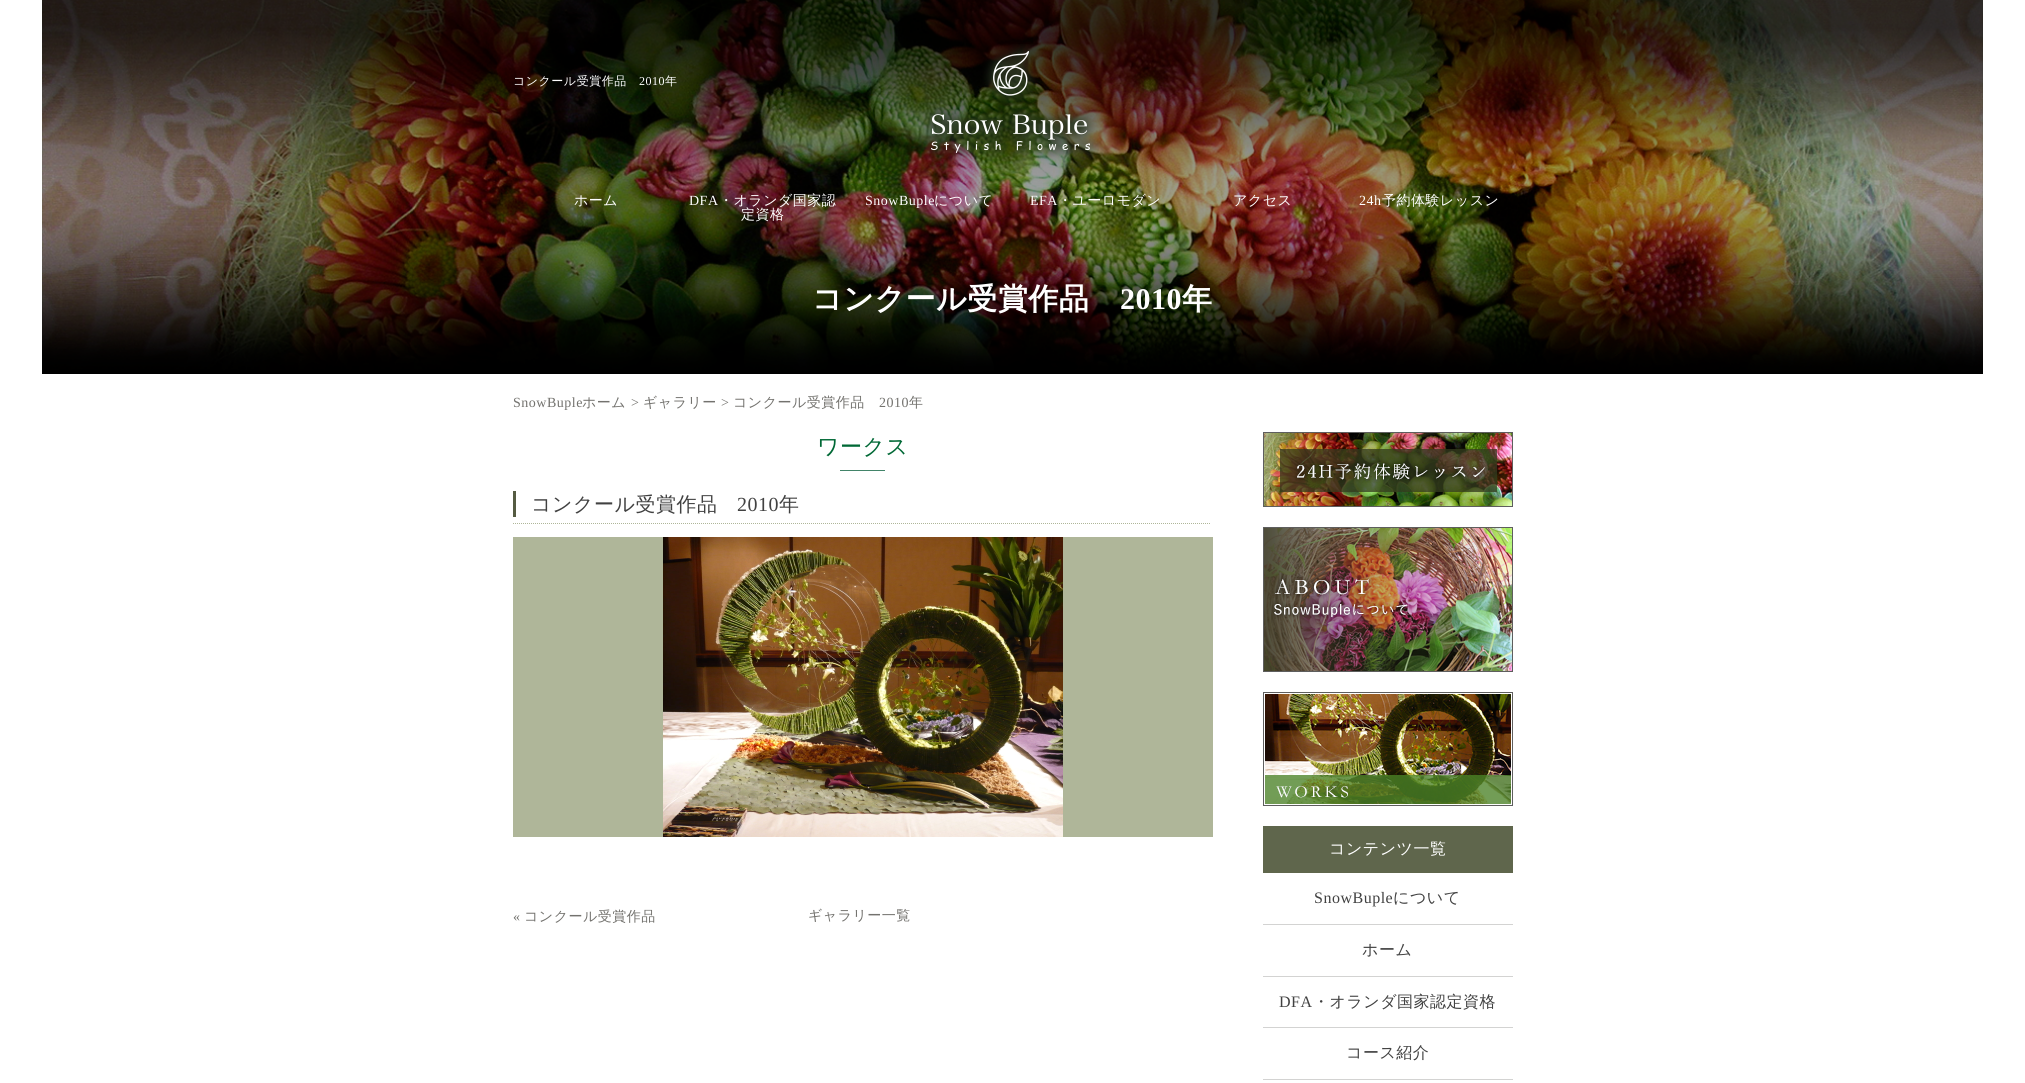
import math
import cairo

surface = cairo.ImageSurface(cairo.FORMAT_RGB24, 2025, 1083)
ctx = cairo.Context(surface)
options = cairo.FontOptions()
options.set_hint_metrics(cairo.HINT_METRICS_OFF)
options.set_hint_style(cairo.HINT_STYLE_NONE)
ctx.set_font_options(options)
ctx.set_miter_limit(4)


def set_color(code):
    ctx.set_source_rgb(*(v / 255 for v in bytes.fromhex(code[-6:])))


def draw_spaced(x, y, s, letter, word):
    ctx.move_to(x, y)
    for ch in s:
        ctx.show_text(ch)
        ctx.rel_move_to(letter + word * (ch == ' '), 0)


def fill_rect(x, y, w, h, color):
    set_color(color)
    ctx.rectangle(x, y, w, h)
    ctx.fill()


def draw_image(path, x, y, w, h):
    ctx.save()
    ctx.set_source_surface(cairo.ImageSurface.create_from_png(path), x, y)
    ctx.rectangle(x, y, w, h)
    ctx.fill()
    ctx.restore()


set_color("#ffffff")
ctx.paint()
draw_image("assets/img1.png", 42, 0, 1941, 374)
ctx.select_font_face("WenQuanYi Zen Hei Medium")
ctx.set_font_size(12)
set_color("#ffffff")
draw_spaced(513, 85, "コンクール受賞作品", 0.5, 0)
ctx.select_font_face("Liberation Serif")
draw_spaced(639, 85, "2010", 0.5, 0)
ctx.select_font_face("WenQuanYi Zen Hei Medium")
draw_spaced(665, 85, "年", 0.5, 0)
draw_image("assets/img2.png", 923, 44, 176, 117)
ctx.set_font_size(14)
draw_spaced(574, 205, "ホーム", 0.5, 0)
ctx.select_font_face("Liberation Serif")
draw_spaced(689, 205, "DFA", 0.5, 0)
ctx.select_font_face("WenQuanYi Zen Hei Medium")
draw_spaced(719, 205, "・オランダ国家認", 0.5, 0)
draw_spaced(741, 219, "定資格", 0.5, 0)
ctx.select_font_face("Liberation Serif")
draw_spaced(865, 205, "SnowBuple", 0.5, 0)
ctx.select_font_face("WenQuanYi Zen Hei Medium")
draw_spaced(934, 205, "について", 0.5, 0)
ctx.select_font_face("Liberation Serif")
draw_spaced(1030, 205, "EFA", 0.5, 0)
ctx.select_font_face("WenQuanYi Zen Hei Medium")
draw_spaced(1058, 205, "・ユーロモダン", 0.5, 0)
draw_spaced(1233, 205, "アクセス", 0.5, 0)
ctx.select_font_face("Liberation Serif")
draw_spaced(1359, 205, "24h", 0.5, 0)
ctx.select_font_face("WenQuanYi Zen Hei Medium")
draw_spaced(1382, 205, "予約体験レッスン", 0.5, 0)
ctx.select_font_face("WenQuanYi Zen Hei", cairo.FONT_SLANT_NORMAL, cairo.FONT_WEIGHT_BOLD)
ctx.set_font_size(30)
draw_spaced(812, 309, "コンクール受賞作品", 0.5, 0)
ctx.select_font_face("Liberation Serif", cairo.FONT_SLANT_NORMAL, cairo.FONT_WEIGHT_BOLD)
draw_spaced(1120, 309, "2010", 0.5, 0)
ctx.select_font_face("WenQuanYi Zen Hei", cairo.FONT_SLANT_NORMAL, cairo.FONT_WEIGHT_BOLD)
draw_spaced(1182, 309, "年", 0.5, 0)
ctx.select_font_face("Liberation Serif")
ctx.set_font_size(14)
set_color("#73726e")
draw_spaced(513, 407, "SnowBuple", 0.5, 0)
ctx.select_font_face("WenQuanYi Zen Hei Medium")
draw_spaced(582, 407, "ホーム", 0.5, 0)
ctx.select_font_face("Liberation Serif")
draw_spaced(631, 407, ">", 0.5, 0)
ctx.select_font_face("WenQuanYi Zen Hei Medium")
draw_spaced(643, 407, "ギャラリー", 0.5, 0)
ctx.select_font_face("Liberation Serif")
draw_spaced(721, 407, ">", 0.5, 0)
ctx.select_font_face("WenQuanYi Zen Hei Medium")
draw_spaced(733, 407, "コンクール受賞作品", 0.5, 0)
ctx.select_font_face("Liberation Serif")
draw_spaced(879, 407, "2010", 0.5, 0)
ctx.select_font_face("WenQuanYi Zen Hei Medium")
draw_spaced(909, 407, "年", 0.5, 0)
ctx.set_font_size(22)
set_color("#006835")
draw_spaced(817, 454, "ワークス", 0.5, 0)
fill_rect(840, 470, 45, 1, "#428469")
fill_rect(513, 491, 3, 26, "#555b42")
ctx.set_font_size(20)
set_color("#414141")
draw_spaced(531, 511, "コンクール受賞作品", 0.5, 0)
ctx.select_font_face("Liberation Serif")
draw_spaced(737, 511, "2010", 0.5, 0)
ctx.select_font_face("WenQuanYi Zen Hei Medium")
draw_spaced(779, 511, "年", 0.5, 0)
ctx.new_path()
ctx.move_to(513, 523.5)
ctx.line_to(1210, 523.5)
set_color("#afb699")
ctx.set_line_width(1)
ctx.set_dash([1, 1])
ctx.stroke()
fill_rect(513, 537, 700, 300, "#afb699")
draw_image("assets/img3.png", 663, 537, 400, 300)
ctx.select_font_face("Liberation Serif")
ctx.set_font_size(14)
set_color("#73726e")
draw_spaced(513, 921, "«", 0.5, 0)
ctx.select_font_face("WenQuanYi Zen Hei Medium")
draw_spaced(524, 921, "コンクール受賞作品", 0.5, 0)
draw_spaced(808, 920, "ギャラリー一覧", 0.5, 0)
draw_image("assets/img4.png", 1263, 432, 250, 75)
draw_image("assets/img5.png", 1263, 527, 250, 145)
draw_image("assets/img6.png", 1263, 692, 250, 114)
fill_rect(1263, 826, 250, 47, "#5f664c")
ctx.set_font_size(16)
set_color("#ffffff")
draw_spaced(1329, 854, "コンテンツ一覧", 0.5, 0)
fill_rect(1263, 924, 250, 1, "#d3d3d2")
ctx.select_font_face("Liberation Serif")
set_color("#414141")
draw_spaced(1314, 903, "SnowBuple", 0.5, 0)
ctx.select_font_face("WenQuanYi Zen Hei Medium")
draw_spaced(1393, 903, "について", 0.5, 0)
fill_rect(1263, 976, 250, 1, "#d3d3d2")
set_color("#414141")
draw_spaced(1362, 955, "ホーム", 0.5, 0)
fill_rect(1263, 1027, 250, 1, "#d3d3d2")
ctx.select_font_face("Liberation Serif")
set_color("#414141")
draw_spaced(1279, 1007, "DFA", 0.5, 0)
ctx.select_font_face("WenQuanYi Zen Hei Medium")
draw_spaced(1313, 1007, "・オランダ国家認定資格", 0.5, 0)
fill_rect(1263, 1079, 250, 1, "#d3d3d2")
set_color("#414141")
draw_spaced(1346, 1058, "コース紹介", 0.5, 0)
surface.write_to_png("output.png")
